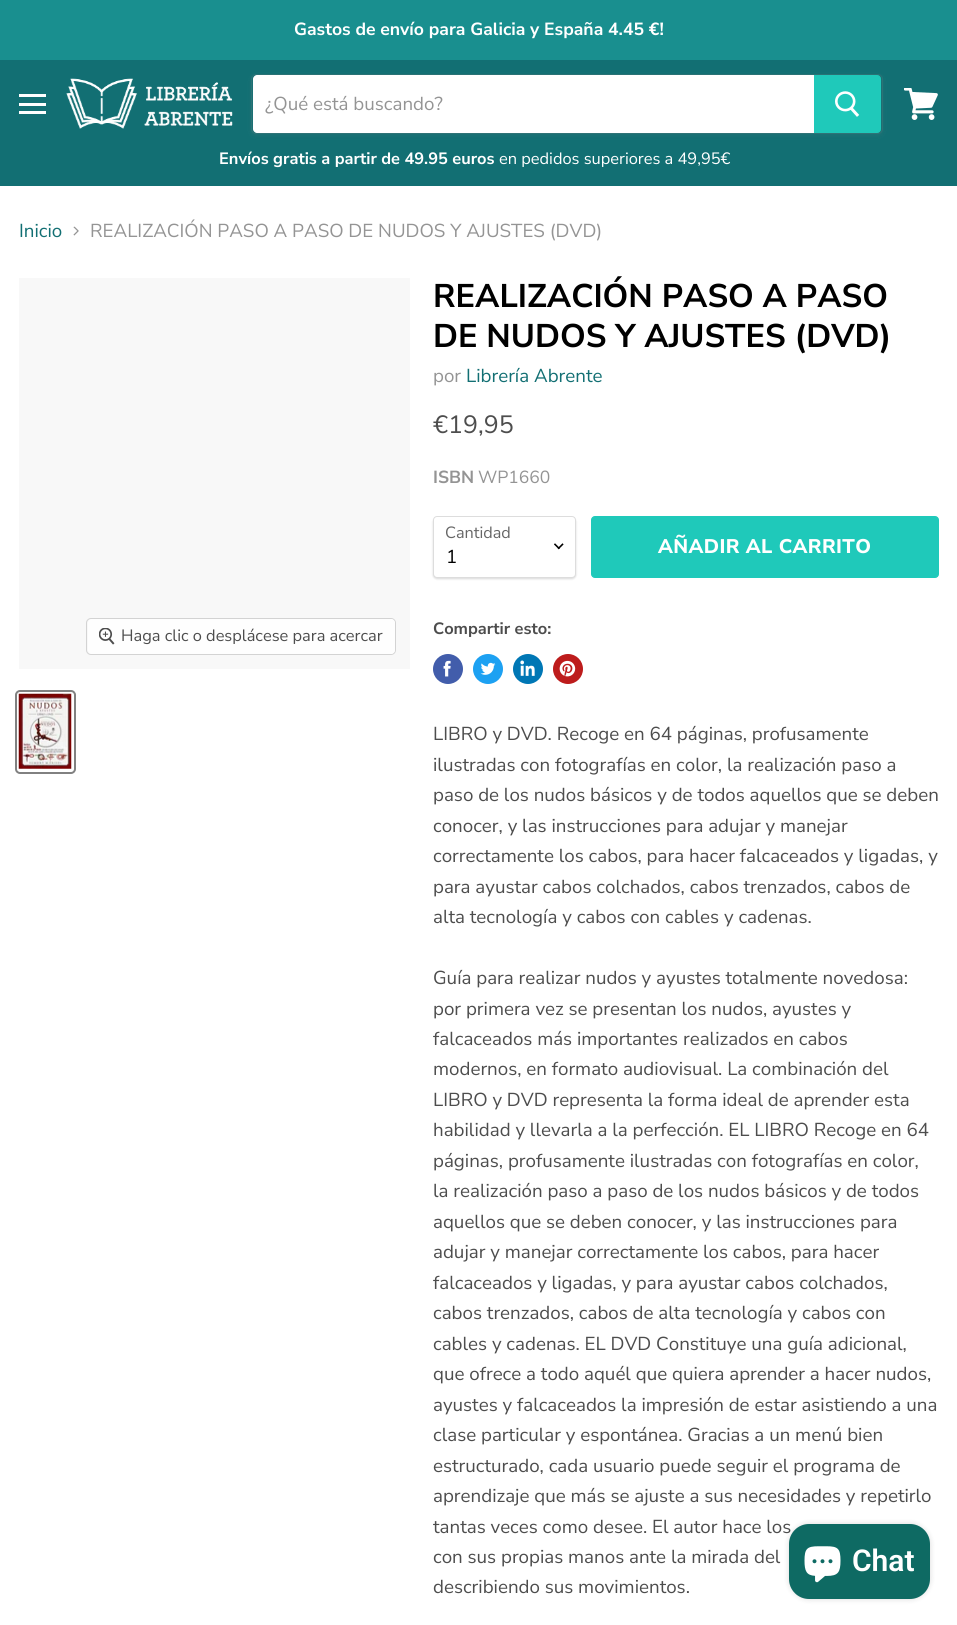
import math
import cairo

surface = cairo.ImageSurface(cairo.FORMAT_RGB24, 957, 1625)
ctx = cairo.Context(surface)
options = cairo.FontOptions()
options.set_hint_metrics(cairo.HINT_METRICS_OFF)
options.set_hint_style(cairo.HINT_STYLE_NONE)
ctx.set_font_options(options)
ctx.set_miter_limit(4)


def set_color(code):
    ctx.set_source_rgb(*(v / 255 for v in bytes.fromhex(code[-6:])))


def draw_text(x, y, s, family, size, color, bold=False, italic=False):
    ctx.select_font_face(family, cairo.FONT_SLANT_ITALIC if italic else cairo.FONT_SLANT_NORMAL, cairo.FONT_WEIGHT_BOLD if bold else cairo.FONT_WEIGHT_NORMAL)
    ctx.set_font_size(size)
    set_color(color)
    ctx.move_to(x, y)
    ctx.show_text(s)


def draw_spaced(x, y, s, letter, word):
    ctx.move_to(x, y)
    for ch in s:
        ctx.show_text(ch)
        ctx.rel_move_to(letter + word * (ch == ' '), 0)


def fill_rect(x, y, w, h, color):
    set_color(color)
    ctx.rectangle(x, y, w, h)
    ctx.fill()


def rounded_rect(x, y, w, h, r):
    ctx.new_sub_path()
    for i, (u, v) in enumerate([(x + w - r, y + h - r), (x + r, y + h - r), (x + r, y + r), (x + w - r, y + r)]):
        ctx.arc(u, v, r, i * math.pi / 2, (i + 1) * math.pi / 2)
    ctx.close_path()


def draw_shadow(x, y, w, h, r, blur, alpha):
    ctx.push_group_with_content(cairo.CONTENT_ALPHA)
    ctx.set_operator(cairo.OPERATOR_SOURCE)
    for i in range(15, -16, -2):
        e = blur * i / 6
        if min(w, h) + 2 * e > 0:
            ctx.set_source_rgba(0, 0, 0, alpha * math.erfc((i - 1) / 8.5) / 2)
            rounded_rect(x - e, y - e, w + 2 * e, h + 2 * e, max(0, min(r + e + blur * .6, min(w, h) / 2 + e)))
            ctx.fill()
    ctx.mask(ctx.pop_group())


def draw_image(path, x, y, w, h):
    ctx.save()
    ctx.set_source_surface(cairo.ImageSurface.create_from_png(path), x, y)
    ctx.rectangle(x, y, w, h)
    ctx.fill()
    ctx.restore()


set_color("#ffffff")
ctx.paint()
fill_rect(0, 0, 957, 60, "#198f8f")
draw_text(294, 35, "Gastos de envío para Galicia y España 4.45 €!", "Nunito Sans", 17.6, "#ffffff", bold=True)
fill_rect(0, 60, 957, 126, "#126f73")
fill_rect(19, 94, 27, 3, "#ffffff")
fill_rect(19, 103, 27, 3, "#ffffff")
fill_rect(19, 111, 27, 3, "#ffffff")
draw_image("assets/img1.png", 66, 78, 167, 51)
set_color("#808080")
draw_shadow(251, 76, 632, 60, 5, 2, 0.11)
rounded_rect(251.5, 74.5, 631, 59, 4.5)
ctx.set_source_rgba(0.502, 0.502, 0.502, 0.2)
ctx.set_line_width(1)
ctx.stroke()
set_color("#ffffff")
ctx.new_path()
ctx.move_to(257, 75)
ctx.line_to(814, 75)
ctx.line_to(814, 133)
ctx.line_to(257, 133)
ctx.curve_to(255, 133, 253, 131, 253, 129)
ctx.line_to(253, 79)
ctx.curve_to(253, 77, 255, 75, 257, 75)
ctx.close_path()
ctx.fill()
draw_text(265, 110, "¿Qué está buscando?", "Nunito Sans", 18.75, "#949494")
set_color("#1fc9ba")
ctx.new_path()
ctx.move_to(814.5, 75.5)
ctx.line_to(877, 75.5)
ctx.curve_to(879, 75.5, 880.5, 77, 880.5, 79)
ctx.line_to(880.5, 129)
ctx.curve_to(880.5, 131, 879, 132.5, 877, 132.5)
ctx.line_to(814.5, 132.5)
ctx.close_path()
ctx.fill_preserve()
ctx.stroke()
draw_image("assets/img2.png", 835, 91, 25, 26)
draw_text(219, 164, "Envíos gratis a partir de 49.95 euros", "Nunito Sans", 16.4, "#ffffff", bold=True)
draw_text(499, 164, "en pedidos superiores a 49,95€", "Nunito Sans", 16.4, "#ffffff")
draw_image("assets/img3.png", 904, 88, 34, 32)
draw_text(19, 237, "Inicio", "Nunito Sans", 18.75, "#126f73")
draw_image("assets/img4.png", 73, 226, 6, 10)
draw_text(90, 237, "REALIZACIÓN PASO A PASO DE NUDOS Y AJUSTES (DVD)", "Nunito Sans", 18.75, "#949494")
fill_rect(19, 278, 391, 391, "#f8f8f8")
rounded_rect(86.5, 618.5, 309, 36, 4.5)
set_color("#d3d3d3")
ctx.stroke()
ctx.set_source_rgba(1, 1, 1, 0.9)
rounded_rect(88, 619, 307, 35, 4)
ctx.fill()
draw_image("assets/img5.png", 99, 628, 16, 17)
draw_text(121, 641, "Haga clic o desplácese para acercar", "Nunito Sans", 16.4, "#4d4d4d")
rounded_rect(16, 691, 59, 82, 4)
set_color("#818181")
ctx.set_line_width(2)
ctx.stroke()
draw_image("assets/img6.png", 18, 693, 54, 76)
draw_text(433, 307, "REALIZACIÓN PASO A PASO", "Nunito Sans", 32.75, "#000000", bold=True)
draw_text(433, 347, "DE NUDOS Y AJUSTES (DVD)", "Nunito Sans", 32.75, "#000000", bold=True)
draw_text(433, 382, "por", "Nunito Sans", 18.75, "#949494")
draw_text(466, 382, "Librería Abrente", "Nunito Sans", 18.75, "#126f73")
draw_text(433, 433, "€19,95", "Nunito Sans", 25, "#4d4d4d")
draw_text(433, 483, "ISBN", "Nunito Sans", 17.5, "#949494", bold=True)
draw_text(478, 483, "WP1660", "Nunito Sans", 17.5, "#949494")
set_color("#000000")
draw_shadow(433, 518, 143, 61, 4, 1, 0.15)
set_color("#ffffff")
rounded_rect(433.5, 516.5, 142, 61, 3.5)
ctx.fill_preserve()
set_color("#dddddd")
ctx.set_line_width(1)
ctx.stroke()
draw_text(445, 538, "Cantidad", "Nunito Sans", 16.25, "#666666")
draw_image("assets/img7.png", 554, 543, 10, 7)
draw_text(446, 563, "1", "Nunito Sans", 18.75, "#000000")
set_color("#1fc9ba")
rounded_rect(591.5, 516.5, 347, 61, 3.5)
ctx.fill_preserve()
ctx.stroke()
ctx.select_font_face("Nunito Sans ExtraBold")
ctx.set_font_size(19.75)
set_color("#ffffff")
draw_spaced(658, 553, "AÑADIR AL CARRITO", 0.4, 0)
draw_text(433, 634, "Compartir esto:", "Nunito Sans", 16.4, "#4d4d4d", bold=True)
set_color("#425dab")
ctx.new_path()
ctx.arc(448, 669, 15, 0, 2 * math.pi)
ctx.fill()
draw_image("assets/img8.png", 443, 660, 8, 17)
set_color("#1da1f2")
ctx.arc(488, 669, 15, 0, 2 * math.pi)
ctx.fill()
draw_image("assets/img9.png", 480, 662, 16, 13)
set_color("#0077b5")
ctx.arc(528, 669, 15, 0, 2 * math.pi)
ctx.fill()
draw_image("assets/img10.png", 520, 660, 15, 16)
set_color("#bd1c1c")
ctx.arc(568, 669, 15, 0, 2 * math.pi)
ctx.fill()
draw_image("assets/img11.png", 559, 660, 17, 17)
draw_text(433, 740, "LIBRO y DVD. Recoge en 64 páginas, profusamente", "Nunito Sans", 18.75, "#4d4d4d")
draw_text(433, 771, "ilustradas con fotografías en color, la realización paso a", "Nunito Sans", 18.75, "#4d4d4d")
draw_text(433, 801, "paso de los nudos básicos y de todos aquellos que se deben", "Nunito Sans", 18.75, "#4d4d4d")
draw_text(433, 832, "conocer, y las instrucciones para adujar y manejar", "Nunito Sans", 18.75, "#4d4d4d")
draw_text(433, 862, "correctamente los cabos, para hacer falcaceados y ligadas, y", "Nunito Sans", 18.75, "#4d4d4d")
draw_text(433, 893, "para ayustar cabos colchados, cabos trenzados, cabos de", "Nunito Sans", 18.75, "#4d4d4d")
draw_text(433, 923, "alta tecnología y cabos con cables y cadenas.", "Nunito Sans", 18.75, "#4d4d4d")
draw_text(433, 984, "Guía para realizar nudos y ayustes totalmente novedosa:", "Nunito Sans", 18.75, "#4d4d4d")
draw_text(433, 1015, "por primera vez se presentan los nudos, ayustes y", "Nunito Sans", 18.75, "#4d4d4d")
draw_text(433, 1045, "falcaceados más importantes realizados en cabos", "Nunito Sans", 18.75, "#4d4d4d")
draw_text(433, 1075, "modernos, en formato audiovisual. La combinación del", "Nunito Sans", 18.75, "#4d4d4d")
draw_text(433, 1106, "LIBRO y DVD representa la forma ideal de aprender esta", "Nunito Sans", 18.75, "#4d4d4d")
draw_text(433, 1136, "habilidad y llevarla a la perfección. EL LIBRO Recoge en 64", "Nunito Sans", 18.75, "#4d4d4d")
draw_text(433, 1167, "páginas, profusamente ilustradas con fotografías en color,", "Nunito Sans", 18.75, "#4d4d4d")
draw_text(433, 1197, "la realización paso a paso de los nudos básicos y de todos", "Nunito Sans", 18.75, "#4d4d4d")
draw_text(433, 1228, "aquellos que se deben conocer, y las instrucciones para", "Nunito Sans", 18.75, "#4d4d4d")
draw_text(433, 1258, "adujar y manejar correctamente los cabos, para hacer", "Nunito Sans", 18.75, "#4d4d4d")
draw_text(433, 1289, "falcaceados y ligadas, y para ayustar cabos colchados,", "Nunito Sans", 18.75, "#4d4d4d")
draw_text(433, 1319, "cabos trenzados, cabos de alta tecnología y cabos con", "Nunito Sans", 18.75, "#4d4d4d")
draw_text(433, 1350, "cables y cadenas. EL DVD Constituye una guía adicional,", "Nunito Sans", 18.75, "#4d4d4d")
draw_text(433, 1380, "que ofrece a todo aquél que quiera aprender a hacer nudos,", "Nunito Sans", 18.75, "#4d4d4d")
draw_text(433, 1411, "ayustes y falcaceados la impresión de estar asistiendo a una", "Nunito Sans", 18.75, "#4d4d4d")
draw_text(433, 1441, "clase particular y espontánea. Gracias a un menú bien", "Nunito Sans", 18.75, "#4d4d4d")
draw_text(433, 1472, "estructurado, cada usuario puede seguir el programa de", "Nunito Sans", 18.75, "#4d4d4d")
draw_text(433, 1502, "aprendizaje que más se ajuste a sus necesidades y repetirlo", "Nunito Sans", 18.75, "#4d4d4d")
draw_text(433, 1533, "tantas veces como desee. El autor hace los", "Nunito Sans", 18.75, "#4d4d4d")
draw_text(433, 1563, "con sus propias manos ante la mirada del", "Nunito Sans", 18.75, "#4d4d4d")
draw_text(433, 1593, "describiendo sus movimientos.", "Nunito Sans", 18.75, "#4d4d4d")
set_color("#000000")
draw_shadow(789, 1524, 141, 75, 20, 3, 0.15)
set_color("#0e6a63")
rounded_rect(789, 1524, 141, 75, 20)
ctx.fill()
draw_image("assets/img12.png", 804, 1546, 37, 37)
draw_text(852, 1571, "Chat", "Roboto SemiBold", 30, "#ffffff")
surface.write_to_png("output.png")
